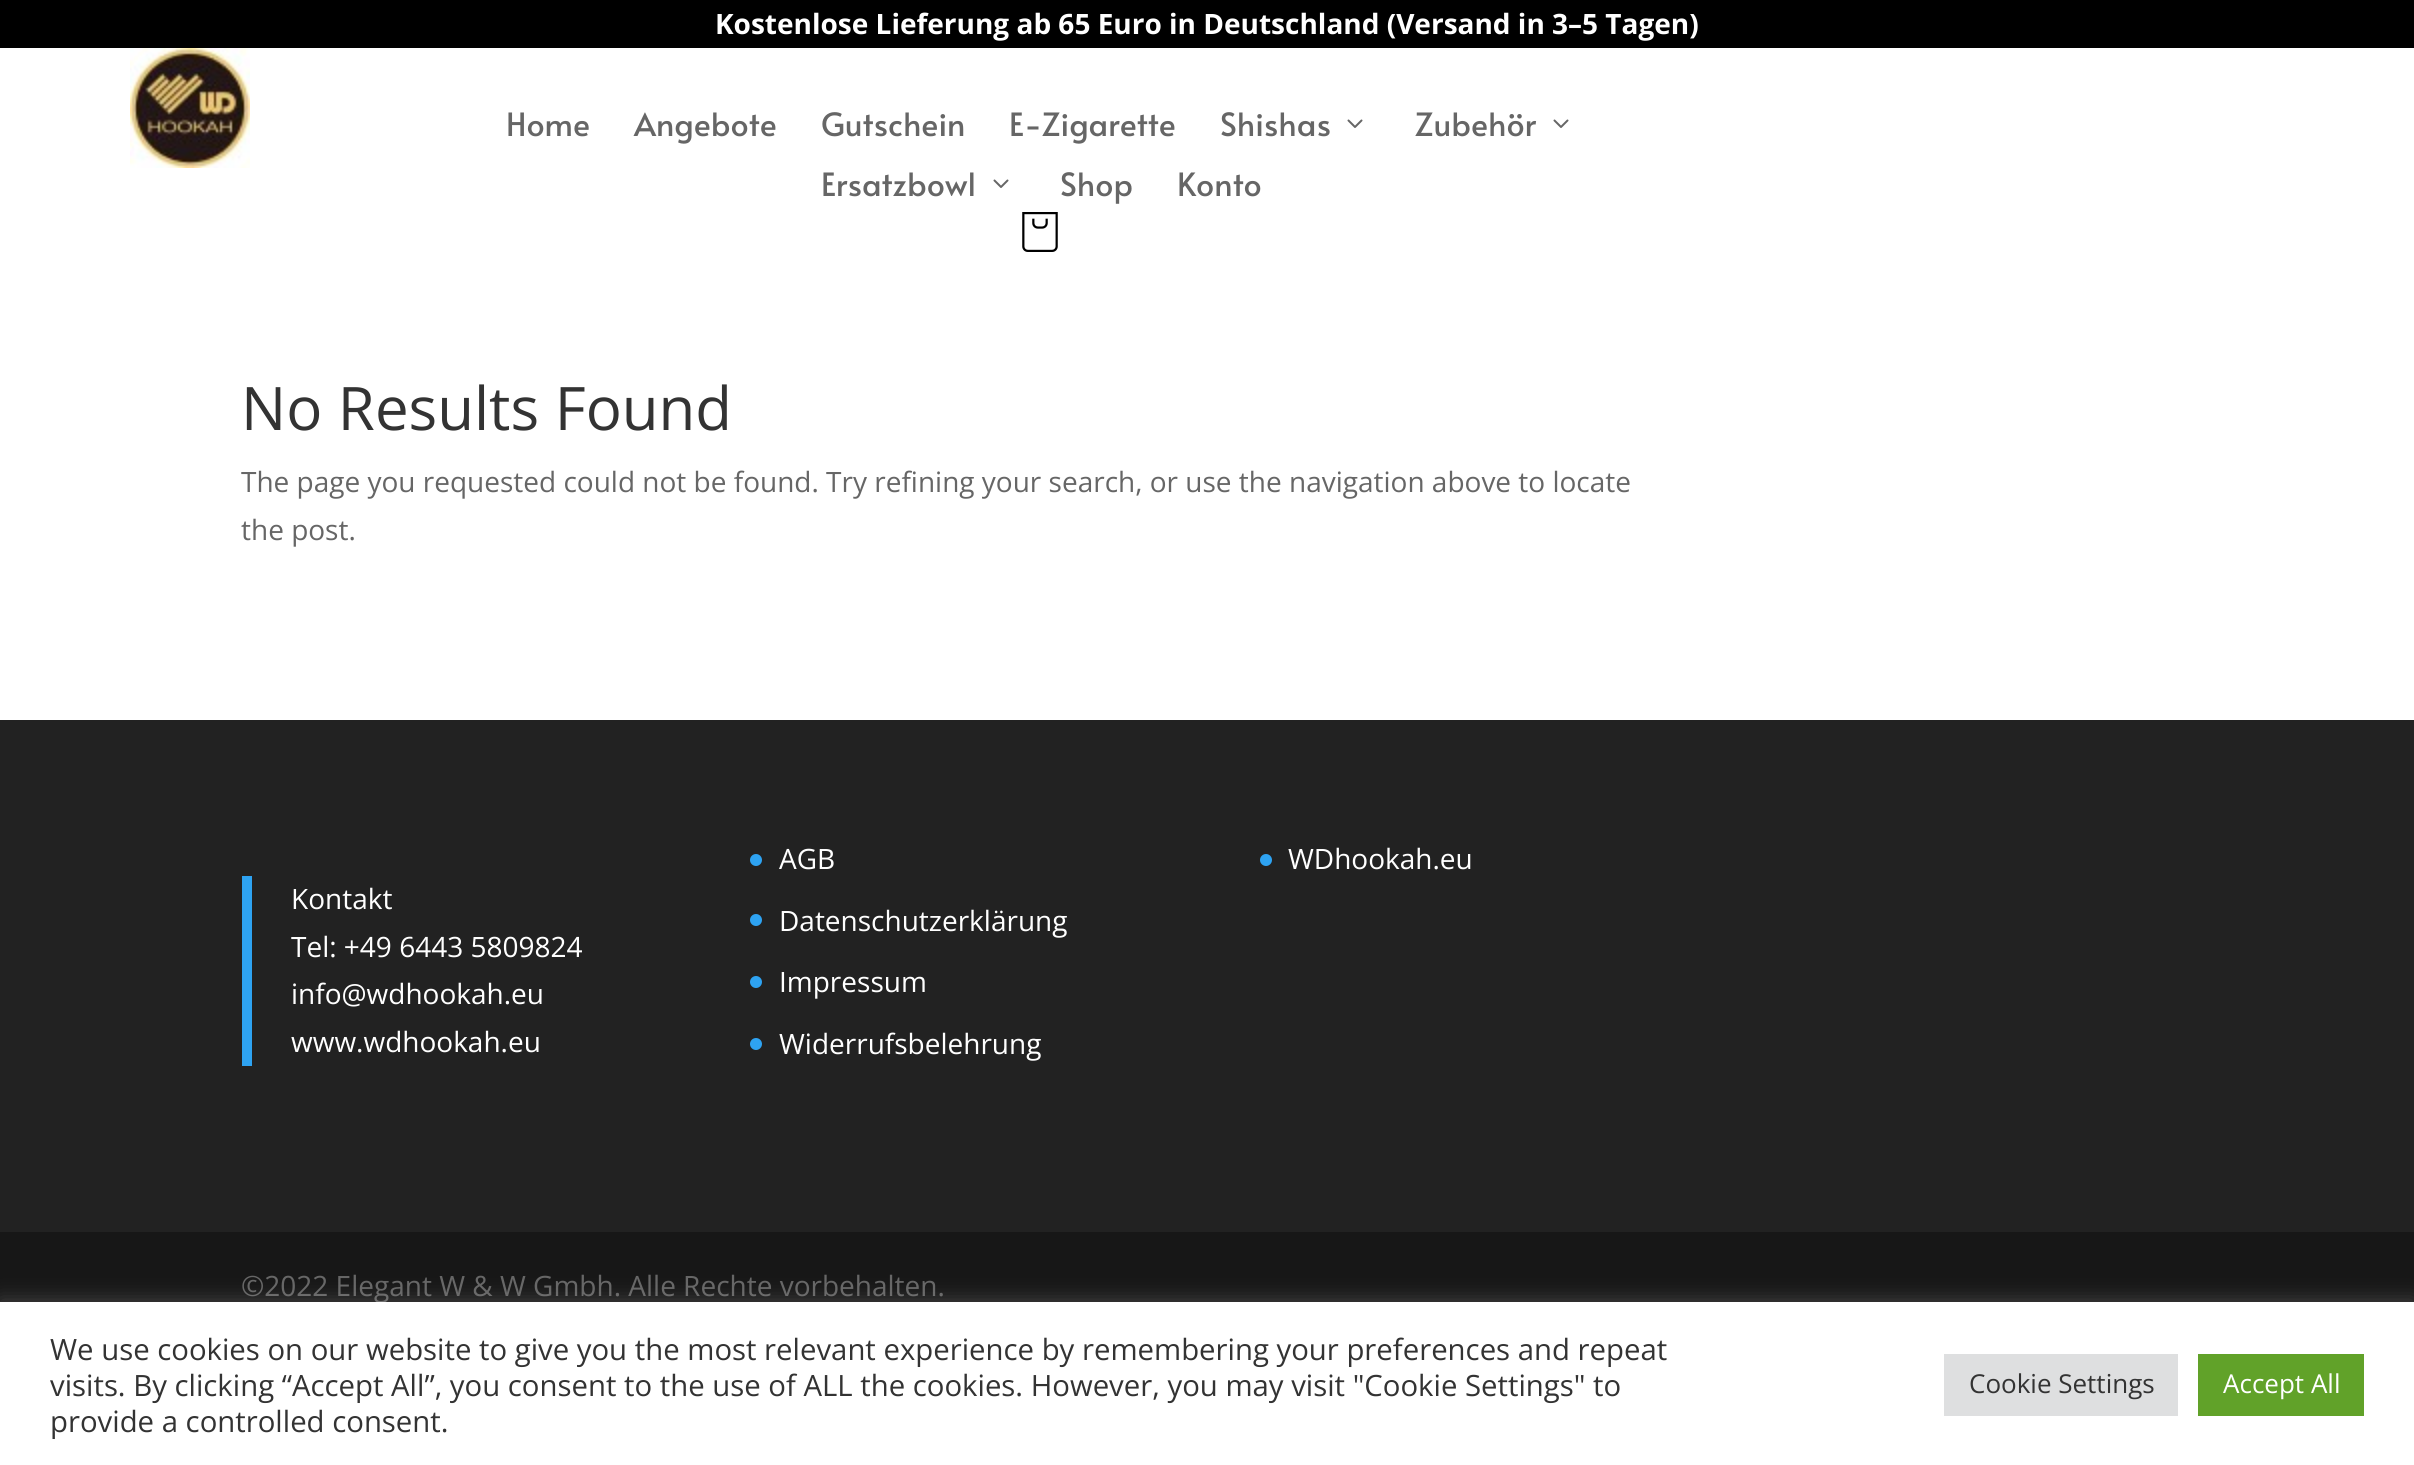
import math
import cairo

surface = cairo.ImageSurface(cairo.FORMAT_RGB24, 2414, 1465)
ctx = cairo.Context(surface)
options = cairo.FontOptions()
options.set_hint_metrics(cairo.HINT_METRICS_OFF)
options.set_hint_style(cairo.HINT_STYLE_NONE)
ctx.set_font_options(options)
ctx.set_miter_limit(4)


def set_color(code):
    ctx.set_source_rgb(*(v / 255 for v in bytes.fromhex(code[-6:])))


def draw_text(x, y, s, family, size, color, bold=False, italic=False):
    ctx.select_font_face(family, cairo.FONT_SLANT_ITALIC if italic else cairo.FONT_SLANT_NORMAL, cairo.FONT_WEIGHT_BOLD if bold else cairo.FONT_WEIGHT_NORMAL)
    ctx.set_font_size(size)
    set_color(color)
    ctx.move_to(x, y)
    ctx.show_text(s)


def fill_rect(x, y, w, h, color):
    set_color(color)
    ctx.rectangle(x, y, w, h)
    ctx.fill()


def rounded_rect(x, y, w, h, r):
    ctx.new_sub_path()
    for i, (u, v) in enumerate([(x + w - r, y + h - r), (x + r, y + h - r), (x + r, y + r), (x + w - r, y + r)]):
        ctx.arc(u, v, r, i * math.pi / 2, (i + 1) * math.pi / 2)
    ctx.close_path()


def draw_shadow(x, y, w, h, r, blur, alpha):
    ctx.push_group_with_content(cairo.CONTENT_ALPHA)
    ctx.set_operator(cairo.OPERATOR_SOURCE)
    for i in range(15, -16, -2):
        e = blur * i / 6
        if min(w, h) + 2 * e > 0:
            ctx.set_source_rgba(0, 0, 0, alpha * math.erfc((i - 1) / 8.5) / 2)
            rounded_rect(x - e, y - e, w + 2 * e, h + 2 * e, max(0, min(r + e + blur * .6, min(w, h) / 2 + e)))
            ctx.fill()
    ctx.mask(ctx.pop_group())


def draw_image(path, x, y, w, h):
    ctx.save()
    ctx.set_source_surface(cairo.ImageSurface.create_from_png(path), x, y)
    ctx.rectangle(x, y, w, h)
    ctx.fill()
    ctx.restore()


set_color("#ffffff")
ctx.paint()
fill_rect(0, 0, 2414, 48, "#000000")
draw_text(715, 34, "Kostenlose Lieferung ab 65 Euro in Deutschland (Versand in 3–5 Tagen)", "Open Sans", 28, "#ffffff", bold=True)
draw_image("assets/img1.png", 130, 48, 120, 120)
draw_text(506, 136, "Home", "Alata", 32, "#666666")
draw_text(634, 136, "Angebote", "Alata", 32, "#666666")
draw_text(821, 136, "Gutschein", "Alata", 32, "#666666")
draw_text(1009, 136, "E-Zigarette", "Alata", 32, "#666666")
draw_text(1220, 136, "Shishas", "Alata", 32, "#666666")
draw_image("assets/img2.png", 1347, 119, 16, 9)
draw_text(1415, 136, "Zubehör", "Alata", 32, "#666666")
draw_image("assets/img2.png", 1553, 119, 16, 9)
draw_text(821, 196, "Ersatzbowl", "Alata", 32, "#666666")
draw_image("assets/img2.png", 993, 179, 16, 9)
draw_text(1060, 196, "Shop", "Alata", 32, "#666666")
draw_text(1177, 196, "Konto", "Alata", 32, "#666666")
draw_image("assets/img3.png", 1022, 212, 36, 40)
draw_text(241, 430, "No Results Found", "Open Sans", 60, "#333333")
draw_text(241, 492, "The page you requested could not be found. Try refining your search, or use the navigation above to locate", "Open Sans", 28, "#666666")
draw_text(241, 540, "the post.", "Open Sans", 28, "#666666")
fill_rect(0, 720, 2414, 512, "#222222")
fill_rect(242, 876, 10, 190, "#2ea3f2")
draw_text(291, 909, "Kontakt", "Open Sans", 28, "#ffffff")
draw_text(291, 957, "Tel: +49 6443 5809824", "Open Sans", 28, "#ffffff")
draw_text(291, 1004, "info@wdhookah.eu", "Open Sans", 28, "#ffffff")
draw_text(291, 1052, "www.wdhookah.eu", "Open Sans", 28, "#ffffff")
set_color("#2ea3f2")
ctx.new_path()
ctx.arc(756, 860, 6, 0, 2 * math.pi)
ctx.fill()
draw_text(779, 869, "AGB", "Open Sans", 28, "#ffffff")
set_color("#2ea3f2")
ctx.new_path()
ctx.arc(756, 920, 6, 0, 2 * math.pi)
ctx.fill()
draw_text(779, 931, "Datenschutzerklärung", "Open Sans", 28, "#ffffff")
set_color("#2ea3f2")
ctx.new_path()
ctx.arc(756, 982, 6, 0, 2 * math.pi)
ctx.fill()
draw_text(779, 992, "Impressum", "Open Sans", 28, "#ffffff")
set_color("#2ea3f2")
ctx.new_path()
ctx.arc(756, 1044, 6, 0, 2 * math.pi)
ctx.fill()
draw_text(779, 1054, "Widerrufsbelehrung", "Open Sans", 28, "#ffffff")
set_color("#2ea3f2")
ctx.new_path()
ctx.arc(1266, 860, 6, 0, 2 * math.pi)
ctx.fill()
draw_text(1288, 869, "WDhookah.eu", "Open Sans", 28, "#ffffff")
fill_rect(0, 1232, 2414, 70, "#171717")
draw_text(241, 1296, "©2022 Elegant W & W Gmbh. Alle Rechte vorbehalten.", "Open Sans", 28, "#666666")
set_color("#acabab")
draw_shadow(0, 1300, 2414, 164, 0, 10, 0.3)
fill_rect(0, 1302, 2414, 163, "#ffffff")
draw_text(50, 1360, "We use cookies on our website to give you the most relevant experience by remembering your preferences and repeat", "Open Sans", 29.33, "#333333")
draw_text(50, 1396, "visits. By clicking “Accept All”, you consent to the use of ALL the cookies. However, you may visit \"Cookie Settings\" to", "Open Sans", 29.33, "#333333")
draw_text(50, 1432, "provide a controlled consent.", "Open Sans", 29.33, "#333333")
fill_rect(1944, 1354, 234, 62, "#dedfe0")
draw_text(1969, 1393, "Cookie Settings", "Open Sans", 26, "#333333")
fill_rect(2198, 1354, 166, 62, "#61a229")
draw_text(2223, 1393, "Accept All", "Open Sans", 26, "#ffffff")
surface.write_to_png("output.png")
